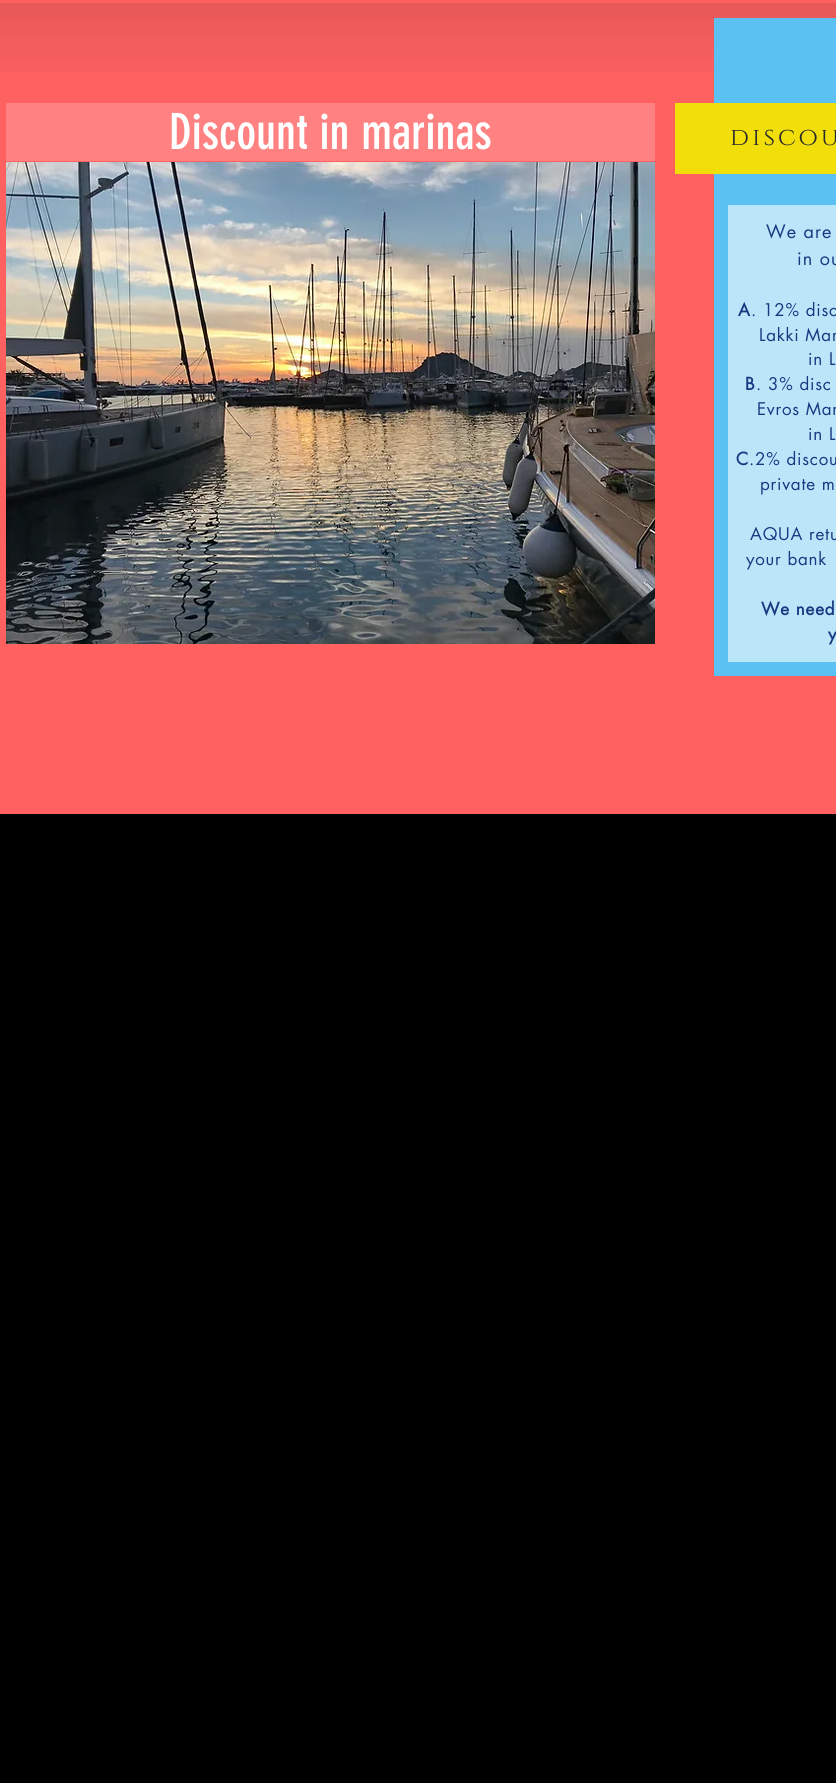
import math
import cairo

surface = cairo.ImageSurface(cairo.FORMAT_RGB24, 836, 1783)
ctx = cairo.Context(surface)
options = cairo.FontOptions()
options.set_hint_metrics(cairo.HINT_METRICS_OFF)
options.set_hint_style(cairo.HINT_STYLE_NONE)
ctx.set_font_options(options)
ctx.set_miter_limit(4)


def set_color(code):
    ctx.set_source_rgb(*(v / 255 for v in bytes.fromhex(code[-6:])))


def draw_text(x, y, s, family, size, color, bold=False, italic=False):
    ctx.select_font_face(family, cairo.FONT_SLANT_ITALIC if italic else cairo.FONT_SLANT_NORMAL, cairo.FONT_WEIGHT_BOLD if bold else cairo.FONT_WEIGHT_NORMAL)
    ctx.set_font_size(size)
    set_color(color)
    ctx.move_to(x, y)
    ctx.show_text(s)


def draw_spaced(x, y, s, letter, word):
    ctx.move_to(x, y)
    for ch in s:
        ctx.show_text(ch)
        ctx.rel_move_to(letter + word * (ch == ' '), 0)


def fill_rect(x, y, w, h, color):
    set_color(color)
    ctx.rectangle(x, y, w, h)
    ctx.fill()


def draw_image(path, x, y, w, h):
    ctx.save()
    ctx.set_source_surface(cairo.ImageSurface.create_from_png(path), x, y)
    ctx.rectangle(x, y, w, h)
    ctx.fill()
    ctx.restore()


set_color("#000000")
ctx.paint()
fill_rect(0, 0, 836, 814, "#ff6161")
draw_image("assets/img1.png", 0, 3, 836, 69)
fill_rect(6, 103, 649, 58, "#ff8181")
draw_text(169, 149, "Discount in marinas", "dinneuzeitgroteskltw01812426", 49, "#ffffff")
fill_rect(714, 18, 122, 658, "#5ac1f2")
fill_rect(675, 103, 161, 71, "#f2df0a")
ctx.select_font_face("Cinzel")
ctx.set_font_size(25)
set_color("#292929")
draw_spaced(730, 145, "discou", 3, 0)
draw_image("assets/img2.png", 6, 162, 649, 482)
fill_rect(728, 205, 108, 457, "#bbe6fa")
ctx.select_font_face("futura")
ctx.set_font_size(18)
set_color("#173981")
draw_spaced(766, 238, "We are", 1, 0)
draw_spaced(797, 265, "in ou", 1, 0)
ctx.select_font_face("futura", cairo.FONT_SLANT_NORMAL, cairo.FONT_WEIGHT_BOLD)
ctx.set_font_size(17)
draw_spaced(738, 316, "A", 0.75, 0)
ctx.select_font_face("futura")
draw_spaced(751, 316, ". 12% disc", 0.75, 0)
draw_spaced(759, 341, "Lakki Mar", 0.75, 0)
draw_spaced(808, 365, "in L", 0.75, 0)
ctx.select_font_face("futura", cairo.FONT_SLANT_NORMAL, cairo.FONT_WEIGHT_BOLD)
draw_spaced(745, 390, "B", 0.75, 0)
ctx.select_font_face("futura")
draw_spaced(756, 390, ". 3% disc", 0.75, 0)
draw_spaced(757, 415, "Evros Mar", 0.75, 0)
draw_spaced(808, 440, "in L", 0.75, 0)
ctx.select_font_face("futura", cairo.FONT_SLANT_NORMAL, cairo.FONT_WEIGHT_BOLD)
draw_spaced(736, 465, "C", 0.75, 0)
ctx.select_font_face("futura")
draw_spaced(749, 465, ".2% discou", 0.75, 0)
draw_spaced(760, 490, "private m", 0.75, 0)
draw_spaced(750, 540, "AQUA retu", 0.75, 0)
draw_spaced(746, 565, "your bank", 0.75, 0)
ctx.select_font_face("futura", cairo.FONT_SLANT_NORMAL, cairo.FONT_WEIGHT_BOLD)
draw_spaced(761, 615, "We need", 0.75, 0)
draw_spaced(828, 640, "y", 0.75, 0)
surface.write_to_png("output.png")
